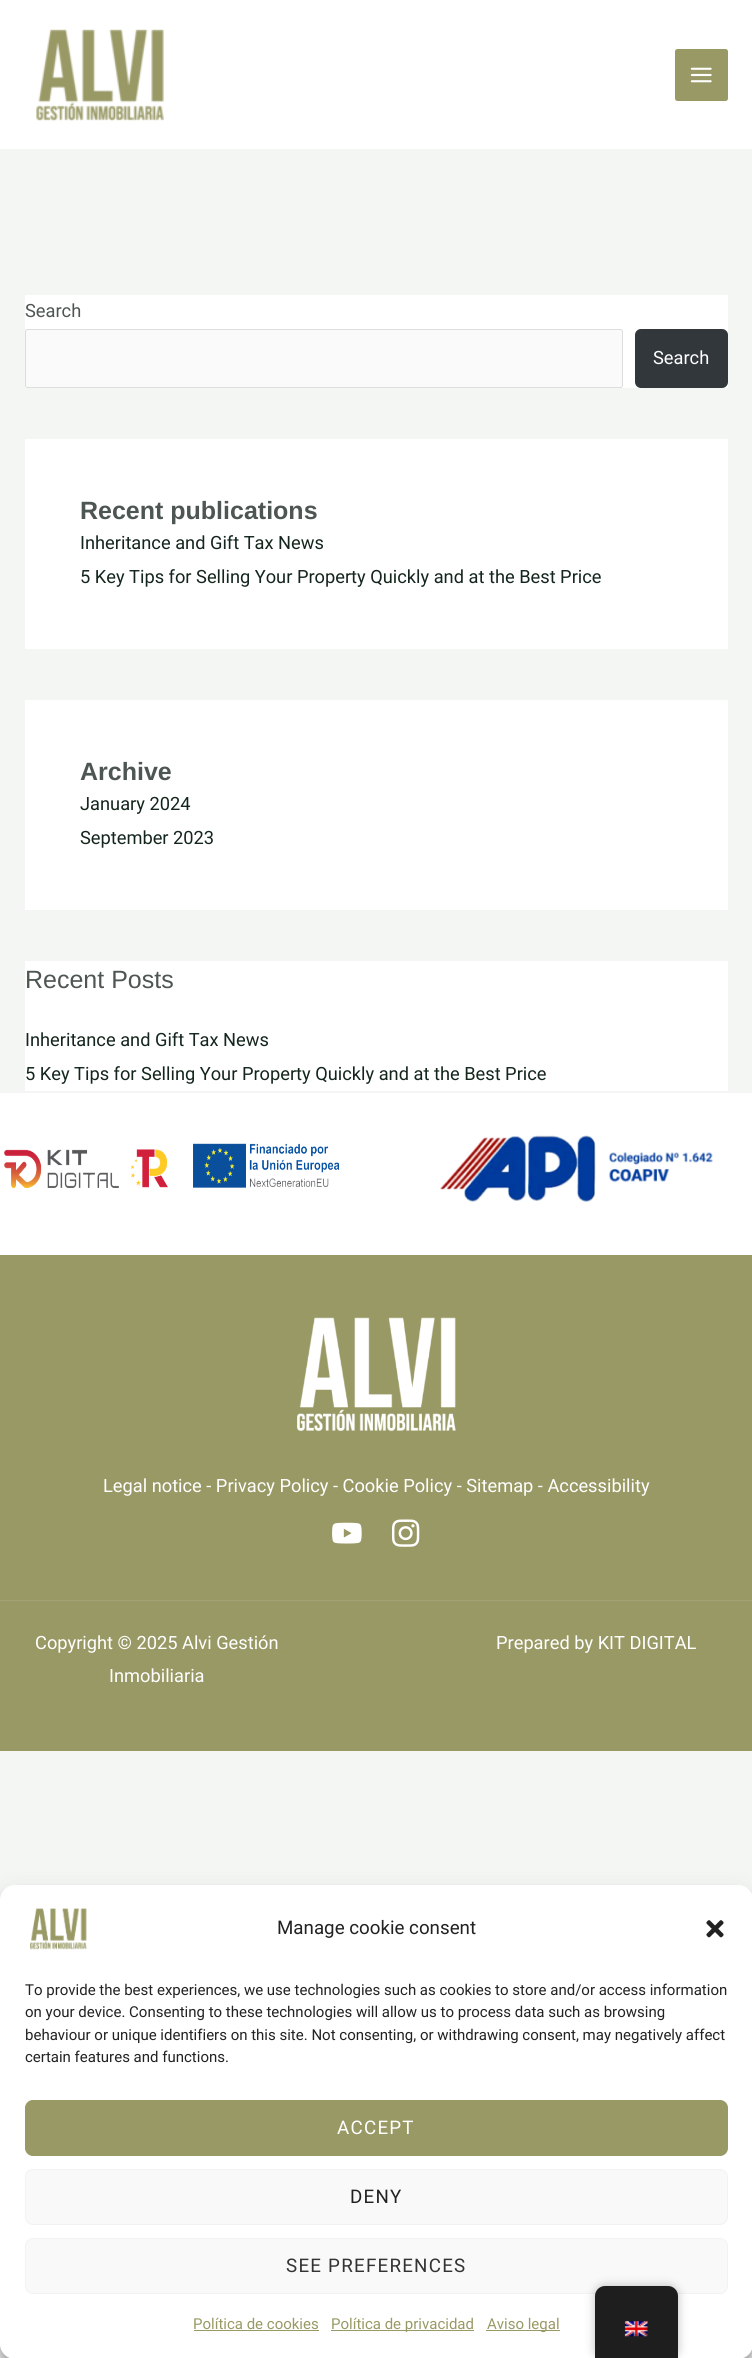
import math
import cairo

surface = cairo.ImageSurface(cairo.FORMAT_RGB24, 752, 2358)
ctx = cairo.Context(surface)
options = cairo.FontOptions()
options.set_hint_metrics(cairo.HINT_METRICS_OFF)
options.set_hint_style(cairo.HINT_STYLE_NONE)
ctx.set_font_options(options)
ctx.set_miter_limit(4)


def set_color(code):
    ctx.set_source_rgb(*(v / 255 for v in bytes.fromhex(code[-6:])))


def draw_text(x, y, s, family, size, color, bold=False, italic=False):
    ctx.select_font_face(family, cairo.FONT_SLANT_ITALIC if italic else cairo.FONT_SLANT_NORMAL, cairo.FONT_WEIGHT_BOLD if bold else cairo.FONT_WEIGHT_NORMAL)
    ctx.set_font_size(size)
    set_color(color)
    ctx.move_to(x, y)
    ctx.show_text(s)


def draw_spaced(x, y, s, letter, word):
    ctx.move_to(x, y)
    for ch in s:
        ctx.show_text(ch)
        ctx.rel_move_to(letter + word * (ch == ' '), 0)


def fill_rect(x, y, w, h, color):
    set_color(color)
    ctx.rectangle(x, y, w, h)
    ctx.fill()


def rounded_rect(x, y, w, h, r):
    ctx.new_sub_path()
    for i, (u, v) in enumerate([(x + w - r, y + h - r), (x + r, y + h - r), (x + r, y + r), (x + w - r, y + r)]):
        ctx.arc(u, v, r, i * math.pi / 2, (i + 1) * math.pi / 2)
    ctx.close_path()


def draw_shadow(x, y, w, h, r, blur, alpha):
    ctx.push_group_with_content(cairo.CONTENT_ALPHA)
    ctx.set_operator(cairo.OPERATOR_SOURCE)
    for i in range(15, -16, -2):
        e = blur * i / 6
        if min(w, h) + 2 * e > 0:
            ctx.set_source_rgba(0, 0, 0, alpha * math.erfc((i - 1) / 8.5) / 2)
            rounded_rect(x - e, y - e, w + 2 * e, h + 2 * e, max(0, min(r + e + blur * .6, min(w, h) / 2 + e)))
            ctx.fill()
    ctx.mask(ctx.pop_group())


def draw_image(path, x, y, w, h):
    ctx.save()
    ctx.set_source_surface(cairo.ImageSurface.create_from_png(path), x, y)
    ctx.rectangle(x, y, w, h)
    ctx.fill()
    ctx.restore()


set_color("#f4f6f4")
ctx.paint()
fill_rect(0, 0, 752, 149, "#ffffff")
draw_image("assets/img1.png", 36, 29, 128, 92)
set_color("#999966")
rounded_rect(675, 49, 53, 52, 2.5)
ctx.fill()
draw_image("assets/img2.png", 690, 67, 22, 16)
fill_rect(25, 295, 703, 93, "#ffffff")
draw_text(25, 317, "Search", "Roboto", 18.25, "#4e5652")
set_color("#fafafa")
rounded_rect(25.5, 329.5, 597, 58, 2)
ctx.fill_preserve()
set_color("#dddddd")
ctx.set_line_width(1)
ctx.stroke()
set_color("#32373c")
rounded_rect(635, 329, 93, 59, 6)
ctx.fill()
draw_text(653, 364, "Search", "Roboto", 18.25, "#ffffff")
fill_rect(25, 439, 703, 210, "#ffffff")
draw_text(80, 519, "Recent publications", "Liberation Sans", 25, "#4e5652", bold=True)
draw_text(80, 549, "Inheritance and Gift Tax News", "Roboto", 18.25, "#14261c")
draw_text(80, 583, "5 Key Tips for Selling Your Property Quickly and at the Best Price", "Roboto", 18.25, "#14261c")
fill_rect(25, 700, 703, 210, "#ffffff")
draw_text(80, 780, "Archive", "Liberation Sans", 25, "#4e5652", bold=True)
draw_text(80, 810, "January 2024", "Roboto", 18.25, "#14261c")
draw_text(80, 844, "September 2023", "Roboto", 18.25, "#14261c")
fill_rect(25, 961, 703, 130, "#ffffff")
draw_text(25, 988, "Recent Posts", "Liberation Sans", 25, "#4e5652")
draw_text(25, 1046, "Inheritance and Gift Tax News", "Roboto", 18.25, "#14261c")
draw_text(25, 1080, "5 Key Tips for Selling Your Property Quickly and at the Best Price", "Roboto", 18.25, "#14261c")
fill_rect(0, 1093, 752, 162, "#ffffff")
draw_image("assets/img3.png", 4, 1143, 336, 46)
draw_image("assets/img4.png", 440, 1135, 273, 67)
fill_rect(0, 1255, 752, 345, "#999966")
draw_image("assets/img5.png", 297, 1317, 159, 115)
draw_text(103, 1492, "Legal notice - Privacy Policy - Cookie Policy - Sitemap - Accessibility", "Roboto", 18.25, "#ffffff")
draw_image("assets/img6.png", 332, 1522, 30, 22)
draw_image("assets/img7.png", 391, 1519, 29, 28)
fill_rect(0, 1601, 752, 150, "#999966")
fill_rect(0, 1600, 752, 1, "#a3a375")
draw_text(35, 1649, "Copyright © 2025 Alvi Gestión", "Roboto", 18.25, "#ffffff")
draw_text(109, 1682, "Inmobiliaria", "Roboto", 18.25, "#ffffff")
draw_text(496, 1649, "Prepared by KIT DIGITAL", "Roboto", 18.25, "#ffffff")
set_color("#000000")
draw_shadow(0, 1893, 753, 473, 15, 4, 0.23)
draw_shadow(0, 1898, 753, 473, 15, 12.5, 0.19)
set_color("#ffffff")
rounded_rect(0, 1885, 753, 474, 15)
ctx.fill()
draw_image("assets/img8.png", 30, 1908, 57, 42)
draw_text(277, 1934, "Manage cookie consent", "Roboto", 18.75, "#222222")
draw_image("assets/img9.png", 706, 1920, 18, 18)
draw_text(25, 1995, "To provide the best experiences, we use technologies such as cookies to store and/or access information", "Roboto", 15, "#222222")
draw_text(25, 2017, "on your device. Consenting to these technologies will allow us to process data such as browsing", "Roboto", 15, "#222222")
draw_text(25, 2040, "behaviour or unique identifiers on this site. Not consenting, or withdrawing consent, may negatively affect", "Roboto", 15, "#222222")
draw_text(25, 2062, "certain features and functions.", "Roboto", 15, "#222222")
set_color("#999966")
rounded_rect(25.5, 2100.5, 702, 55, 7.5)
ctx.fill_preserve()
ctx.stroke()
ctx.set_font_size(18.75)
set_color("#ffffff")
draw_spaced(337, 2134, "ACCEPT", 1.25, 0)
set_color("#f9f9f9")
rounded_rect(25.5, 2169.5, 702, 55, 7.5)
ctx.fill_preserve()
set_color("#f2f2f2")
ctx.stroke()
set_color("#222222")
draw_spaced(350, 2203, "DENY", 1.25, 0)
set_color("#f9f9f9")
rounded_rect(25.5, 2238.5, 702, 55, 7.5)
ctx.fill_preserve()
set_color("#f2f2f2")
ctx.stroke()
set_color("#333333")
draw_spaced(286, 2272, "SEE PREFERENCES", 1.25, 0)
draw_text(193, 2329, "Política de cookies", "Roboto", 15, "#999966")
fill_rect(194, 2330, 125, 1, "#999966")
fill_rect(331, 2330, 143, 1, "#999966")
draw_text(331, 2329, "Política de privacidad", "Roboto", 15, "#999966")
fill_rect(486, 2330, 74, 1, "#999966")
draw_text(487, 2329, "Aviso legal", "Roboto", 15, "#999966")
set_color("#000000")
draw_shadow(595, 2286, 83, 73, 10, 5, 0.25)
set_color("#1e1e1e")
ctx.new_path()
ctx.move_to(605, 2286)
ctx.line_to(668, 2286)
ctx.curve_to(673.5, 2286, 678, 2290.5, 678, 2296)
ctx.line_to(678, 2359)
ctx.line_to(595, 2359)
ctx.line_to(595, 2296)
ctx.curve_to(595, 2290.5, 599.5, 2286, 605, 2286)
ctx.close_path()
ctx.fill()
draw_image("assets/img10.png", 624, 2321, 24, 16)
surface.write_to_png("output.png")
